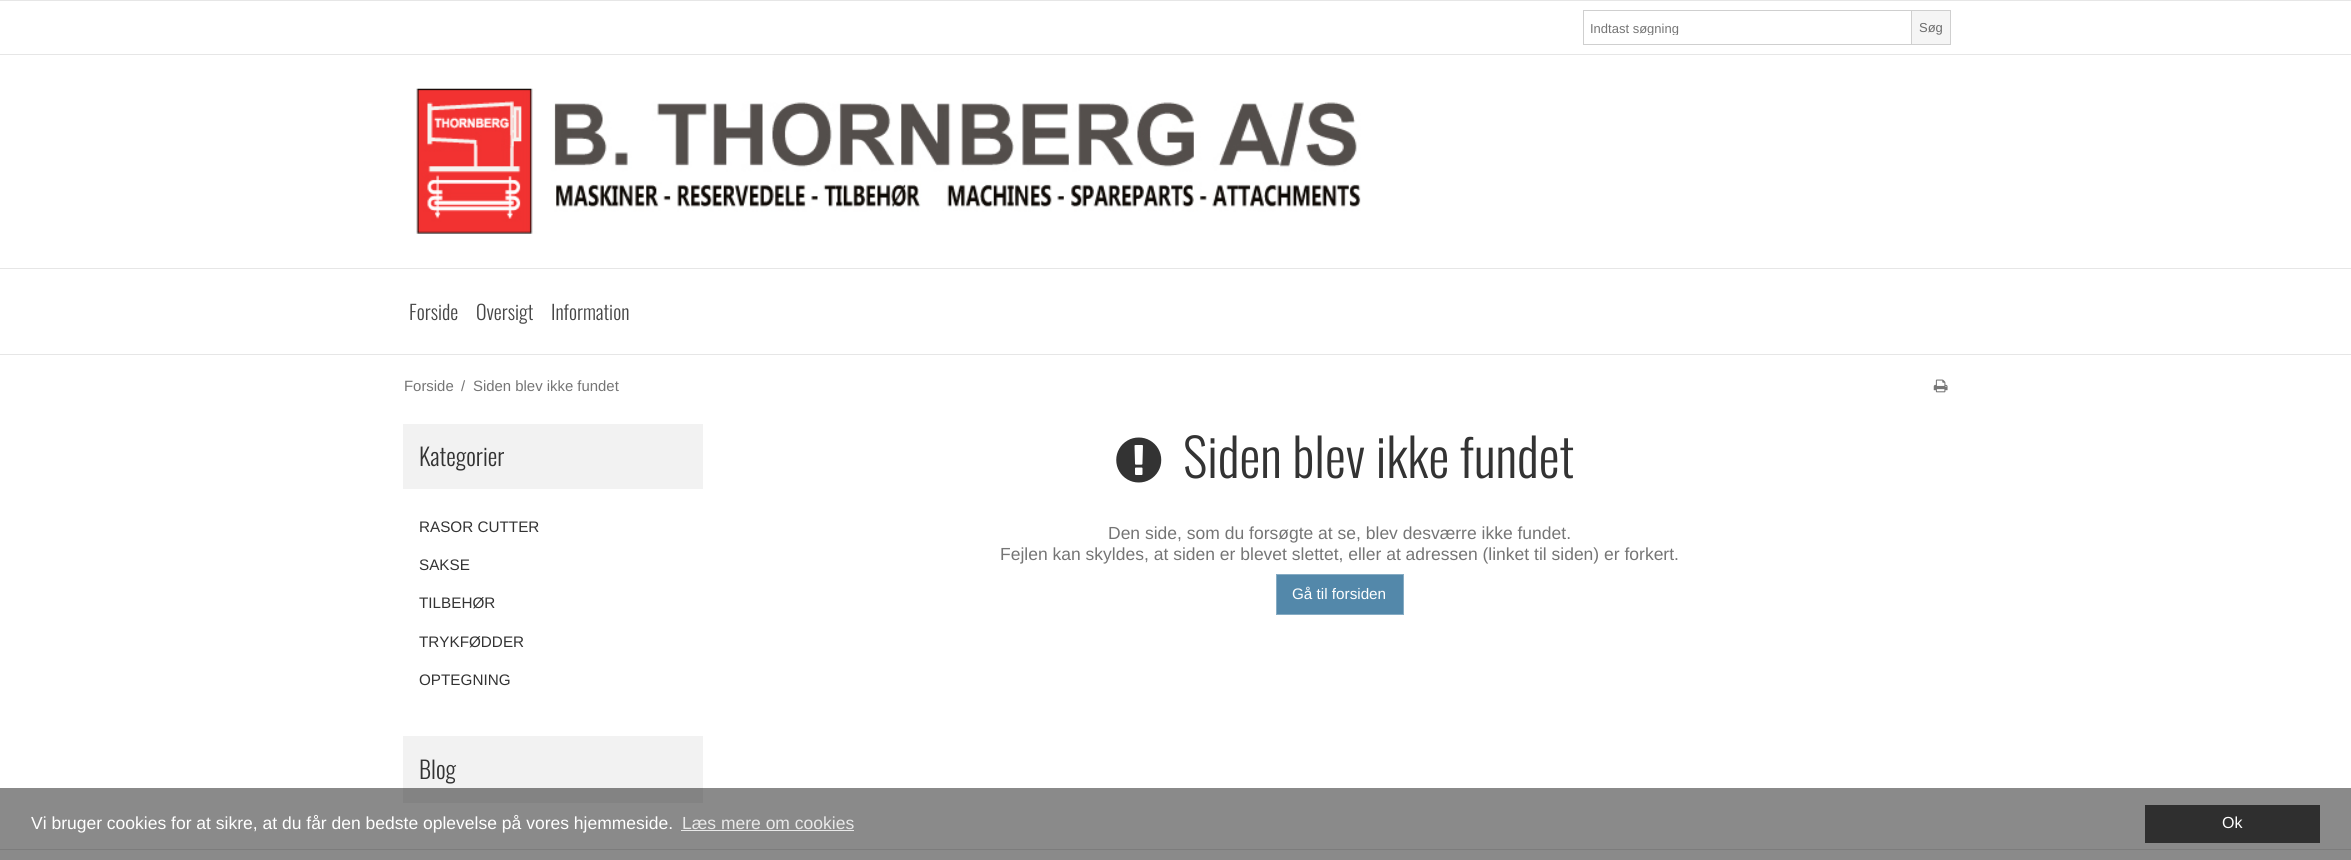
import math
import cairo

surface = cairo.ImageSurface(cairo.FORMAT_RGB24, 2351, 860)
ctx = cairo.Context(surface)
options = cairo.FontOptions()
options.set_hint_metrics(cairo.HINT_METRICS_OFF)
options.set_hint_style(cairo.HINT_STYLE_NONE)
ctx.set_font_options(options)
ctx.set_miter_limit(4)


def set_color(code):
    ctx.set_source_rgb(*(v / 255 for v in bytes.fromhex(code[-6:])))


def draw_text(x, y, s, family, size, color, bold=False, italic=False):
    ctx.select_font_face(family, cairo.FONT_SLANT_ITALIC if italic else cairo.FONT_SLANT_NORMAL, cairo.FONT_WEIGHT_BOLD if bold else cairo.FONT_WEIGHT_NORMAL)
    ctx.set_font_size(size)
    set_color(color)
    ctx.move_to(x, y)
    ctx.show_text(s)


def fill_rect(x, y, w, h, color):
    set_color(color)
    ctx.rectangle(x, y, w, h)
    ctx.fill()


def draw_image(path, x, y, w, h):
    ctx.save()
    ctx.set_source_surface(cairo.ImageSurface.create_from_png(path), x, y)
    ctx.rectangle(x, y, w, h)
    ctx.fill()
    ctx.restore()


set_color("#ffffff")
ctx.paint()
fill_rect(0, 788, 2351, 72, "#8a8a8a")
fill_rect(0, 0, 2351, 1, "#e6e6e6")
fill_rect(0, 54, 2351, 1, "#e6e6e6")
fill_rect(1583, 10, 330, 1, "#cfcfcf")
fill_rect(1583, 44, 330, 1, "#cfcfcf")
fill_rect(1583, 10, 1, 35, "#cfcfcf")
ctx.save()
ctx.rectangle(1590, 20, 315, 15)
ctx.clip()
draw_text(1590, 33, "Indtast søgning", "Liberation Sans", 13, "#757575")
ctx.restore()
set_color("#f5f5f5")
ctx.rectangle(1911.5, 10.5, 39, 34)
ctx.fill_preserve()
set_color("#cfcfcf")
ctx.set_line_width(1)
ctx.stroke()
draw_text(1919, 32, "Søg", "Liberation Sans", 13, "#6c6c6c")
draw_image("assets/img1.png", 416, 88, 945, 146)
fill_rect(0, 268, 2351, 1, "#e6e6e6")
fill_rect(0, 354, 2351, 1, "#e6e6e6")
draw_text(409, 320, "Forside", "Oswald Light", 20, "#464646")
draw_text(476, 320, "Oversigt", "Oswald Light", 20, "#464646")
draw_text(551, 320, "Information", "Oswald Light", 20, "#464646")
draw_text(404, 391, "Forside", "Liberation Sans", 14.9, "#757575")
draw_text(461, 391, "/", "Liberation Sans", 14.9, "#757575")
draw_text(473, 391, "Siden blev ikke fundet", "Liberation Sans", 14.9, "#757575")
draw_image("assets/img2.png", 1933, 379, 15, 14)
fill_rect(403, 424, 300, 65, "#f2f2f2")
draw_text(419, 466, "Kategorier", "Oswald Light", 24, "#333333")
draw_text(419, 532, "RASOR CUTTER", "Liberation Sans", 15.25, "#333333")
draw_text(419, 570, "SAKSE", "Liberation Sans", 15.25, "#333333")
draw_text(419, 608, "TILBEHØR", "Liberation Sans", 15.25, "#333333")
draw_text(419, 647, "TRYKFØDDER", "Liberation Sans", 15.25, "#333333")
draw_text(419, 685, "OPTEGNING", "Liberation Sans", 15.25, "#333333")
fill_rect(403, 736, 300, 52, "#f2f2f2")
fill_rect(403, 788, 300, 15, "#838383")
draw_text(419, 779, "Blog", "Oswald Light", 24, "#333333")
draw_image("assets/img3.png", 1116, 437, 46, 46)
draw_text(1183, 478, "Siden blev ikke fundet", "Oswald Light", 52.5, "#333333")
draw_text(1108, 539, "Den side, som du forsøgte at se, blev desværre ikke fundet.", "Liberation Sans", 17.5, "#757575")
draw_text(1000, 560, "Fejlen kan skyldes, at siden er blevet slettet, eller at adressen (linket til siden) er forkert.", "Liberation Sans", 17.5, "#757575")
set_color("#5388aa")
ctx.rectangle(1276.5, 574.5, 127, 40)
ctx.fill_preserve()
set_color("#86acc4")
ctx.stroke()
draw_text(1292, 599, "Gå til forsiden", "Liberation Sans", 15.25, "#ffffff")
draw_text(31, 829, "Vi bruger cookies for at sikre, at du får den bedste oplevelse på vores hjemmeside.", "Liberation Sans", 17.5, "#ffffff")
draw_text(682, 829, "Læs mere om cookies", "Liberation Sans", 17.5, "#e8e8e8")
fill_rect(681, 830, 173, 1, "#e8e8e8")
fill_rect(2145, 805, 175, 38, "#2f2f2f")
draw_text(2222, 828, "Ok", "Liberation Sans", 16, "#ffffff")
fill_rect(0, 849, 2351, 1, "#7c7c7c")
surface.write_to_png("output.png")
